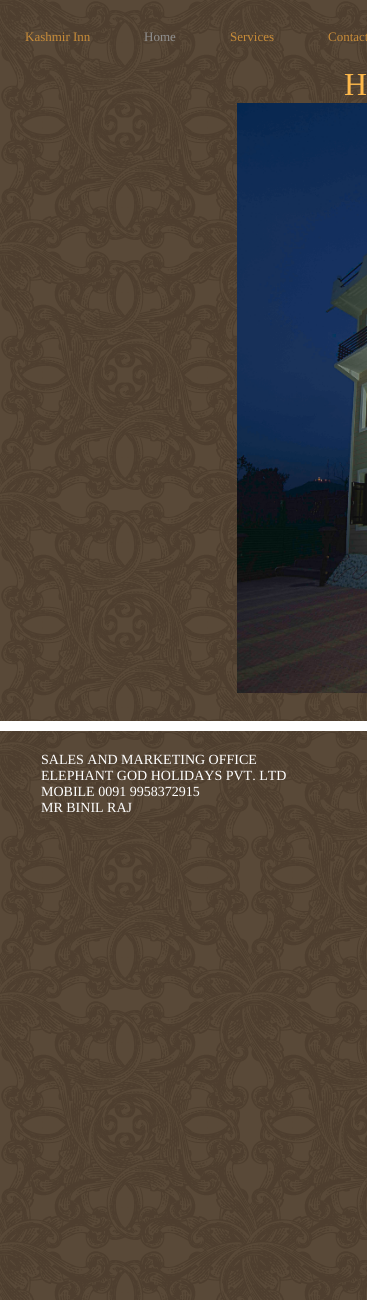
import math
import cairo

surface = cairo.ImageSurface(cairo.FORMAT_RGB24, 367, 1300)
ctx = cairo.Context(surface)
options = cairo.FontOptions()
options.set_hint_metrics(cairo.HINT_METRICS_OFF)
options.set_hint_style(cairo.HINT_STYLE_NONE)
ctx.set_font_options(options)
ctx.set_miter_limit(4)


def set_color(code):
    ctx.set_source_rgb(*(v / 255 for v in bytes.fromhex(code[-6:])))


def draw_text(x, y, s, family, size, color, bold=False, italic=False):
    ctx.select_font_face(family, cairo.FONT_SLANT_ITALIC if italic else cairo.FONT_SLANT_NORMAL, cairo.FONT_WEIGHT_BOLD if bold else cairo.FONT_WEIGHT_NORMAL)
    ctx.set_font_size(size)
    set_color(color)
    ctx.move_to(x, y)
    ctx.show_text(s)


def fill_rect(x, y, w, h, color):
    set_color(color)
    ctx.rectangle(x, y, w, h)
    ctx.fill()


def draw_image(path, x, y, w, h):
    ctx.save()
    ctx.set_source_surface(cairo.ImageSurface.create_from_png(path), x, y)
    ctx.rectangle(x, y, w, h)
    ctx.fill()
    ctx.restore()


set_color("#4d3d2d")
ctx.paint()
draw_image("assets/img1.png", 0, 0, 367, 1300)
draw_text(25, 41, "Kashmir Inn", "Liberation Serif", 13, "#c78b38")
draw_text(144, 41, "Home", "Liberation Serif", 13, "#909090")
draw_text(230, 41, "Services", "Liberation Serif", 13, "#c78b38")
draw_text(328, 41, "Contact", "Liberation Serif", 13, "#c78b38")
draw_text(344, 95, "H", "Liberation Serif", 32, "#ffb94b")
draw_image("assets/img2.png", 237, 103, 130, 590)
fill_rect(0, 721, 367, 10, "#ffffff")
draw_text(41, 764, "SALES AND MARKETING OFFICE", "Liberation Serif", 14, "#ffffff")
draw_text(41, 780, "ELEPHANT GOD HOLIDAYS PVT. LTD", "Liberation Serif", 14, "#ffffff")
draw_text(41, 796, "MOBILE 0091 9958372915", "Liberation Serif", 14, "#ffffff")
draw_text(41, 812, "MR BINIL RAJ", "Liberation Serif", 14, "#ffffff")
surface.write_to_png("output.png")
